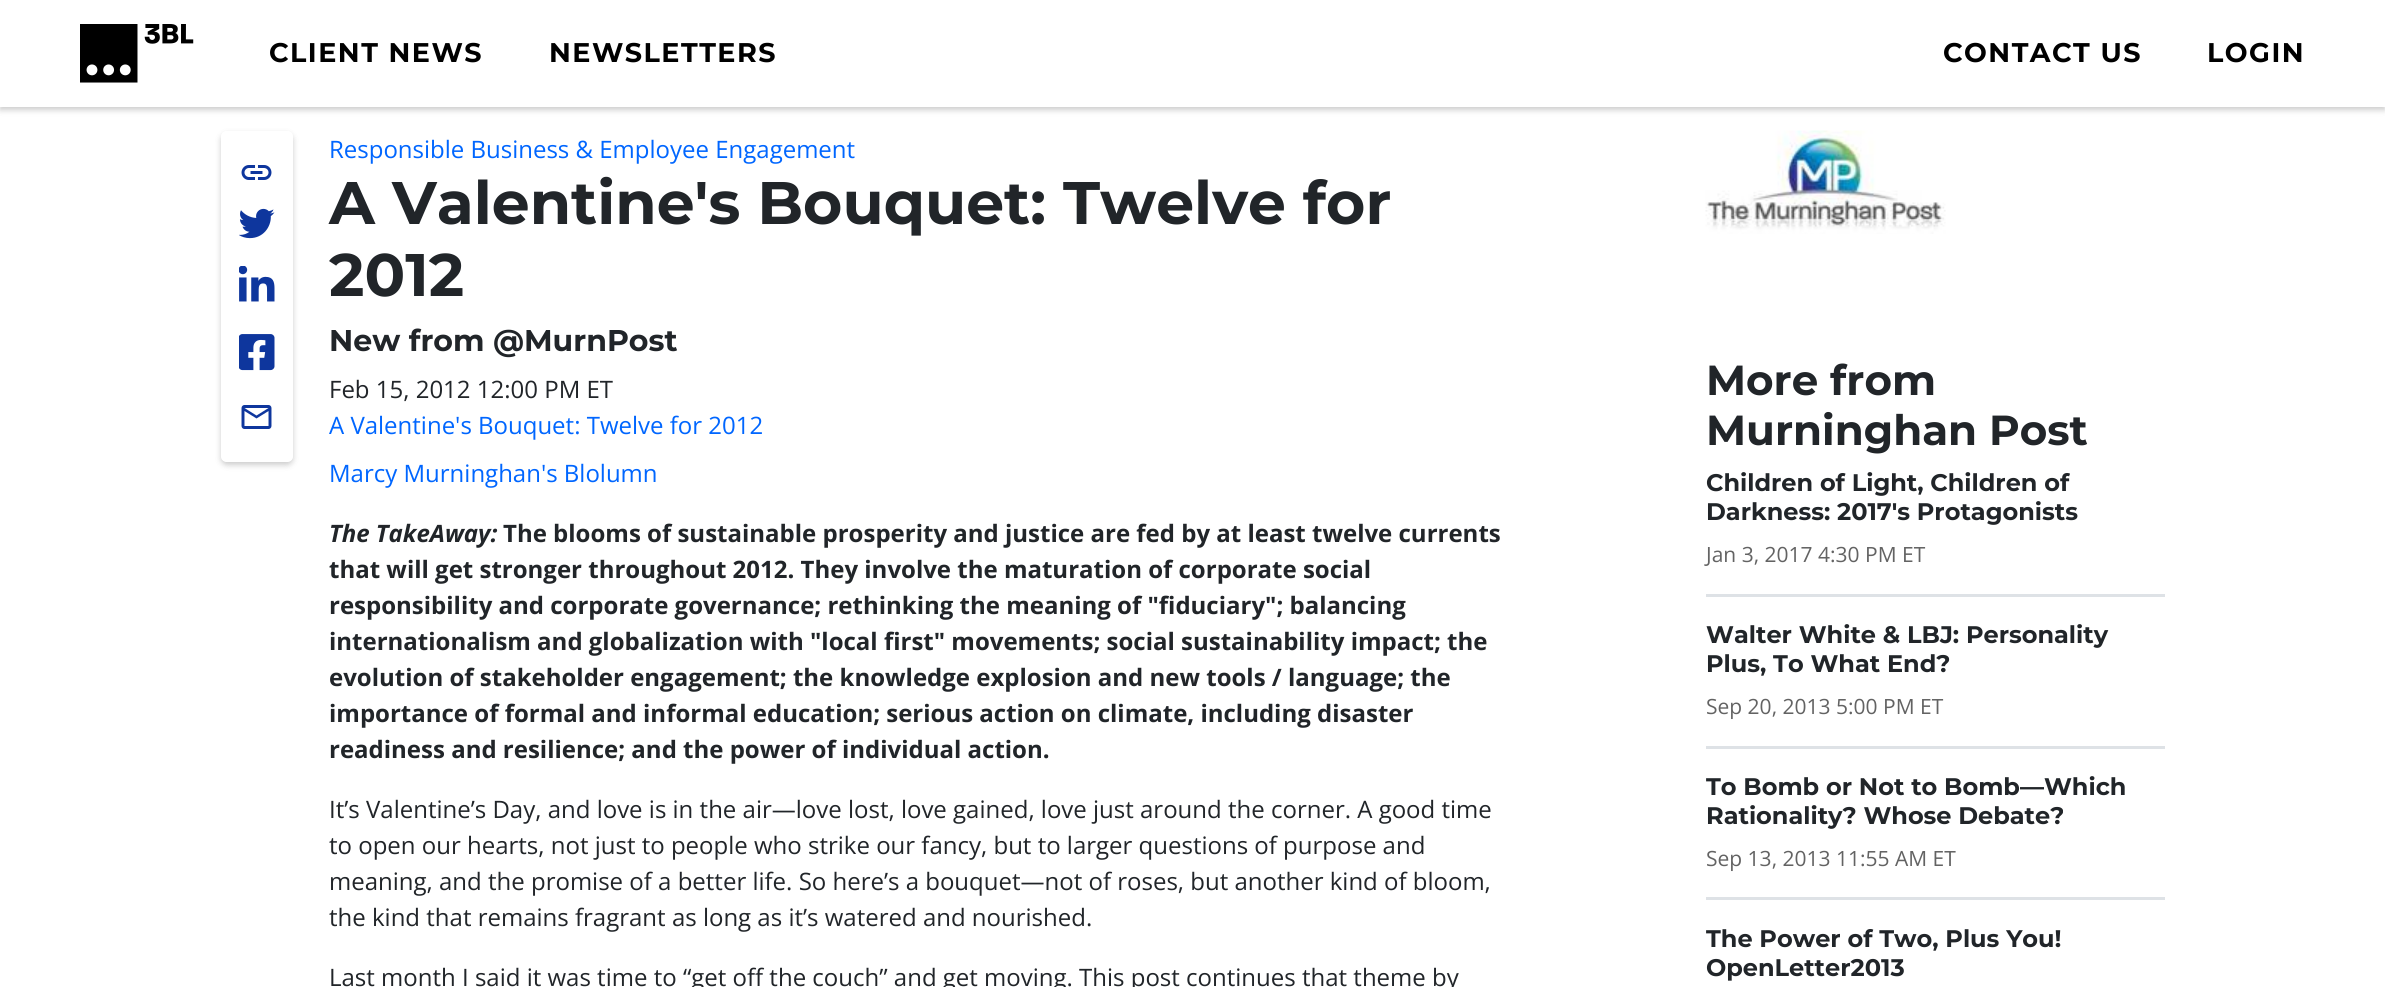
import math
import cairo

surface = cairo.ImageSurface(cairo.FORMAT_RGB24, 2385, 987)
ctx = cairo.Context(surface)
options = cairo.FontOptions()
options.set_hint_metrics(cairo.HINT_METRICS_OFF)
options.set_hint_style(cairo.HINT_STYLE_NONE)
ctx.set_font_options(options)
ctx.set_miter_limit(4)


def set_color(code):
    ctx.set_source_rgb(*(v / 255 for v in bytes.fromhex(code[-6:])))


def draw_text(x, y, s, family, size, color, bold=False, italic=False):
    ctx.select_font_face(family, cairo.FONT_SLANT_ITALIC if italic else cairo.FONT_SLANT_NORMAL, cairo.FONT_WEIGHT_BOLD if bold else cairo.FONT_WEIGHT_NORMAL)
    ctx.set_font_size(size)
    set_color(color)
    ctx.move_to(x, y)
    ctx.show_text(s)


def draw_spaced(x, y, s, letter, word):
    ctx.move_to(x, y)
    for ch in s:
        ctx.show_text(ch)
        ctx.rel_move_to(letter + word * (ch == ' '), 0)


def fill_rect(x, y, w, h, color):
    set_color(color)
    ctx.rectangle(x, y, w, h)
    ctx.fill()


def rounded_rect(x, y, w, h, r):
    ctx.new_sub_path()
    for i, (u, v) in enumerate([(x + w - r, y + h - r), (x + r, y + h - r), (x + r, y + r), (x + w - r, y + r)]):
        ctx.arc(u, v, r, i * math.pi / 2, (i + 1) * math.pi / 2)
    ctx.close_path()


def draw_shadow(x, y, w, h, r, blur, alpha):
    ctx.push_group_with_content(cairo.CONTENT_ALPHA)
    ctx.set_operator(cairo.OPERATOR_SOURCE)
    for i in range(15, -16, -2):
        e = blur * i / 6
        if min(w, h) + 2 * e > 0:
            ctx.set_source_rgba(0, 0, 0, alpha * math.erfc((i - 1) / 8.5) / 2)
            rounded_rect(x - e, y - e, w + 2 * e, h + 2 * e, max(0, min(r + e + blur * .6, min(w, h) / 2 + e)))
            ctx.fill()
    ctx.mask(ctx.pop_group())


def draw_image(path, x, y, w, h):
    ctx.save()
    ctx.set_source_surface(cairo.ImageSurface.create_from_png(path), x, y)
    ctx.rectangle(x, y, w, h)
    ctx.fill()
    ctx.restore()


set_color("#ffffff")
ctx.paint()
set_color("#000000")
draw_shadow(0, 3, 2385, 107, 0, 3, 0.2)
fill_rect(0, 0, 2385, 107, "#ffffff")
draw_image("assets/img1.png", 80, 24, 114, 59)
ctx.select_font_face("Montserrat", cairo.FONT_SLANT_NORMAL, cairo.FONT_WEIGHT_BOLD)
ctx.set_font_size(27)
set_color("#000000")
draw_spaced(269, 62, "CLIENT NEWS", 1.5, 0)
draw_spaced(549, 62, "NEWSLETTERS", 1.5, 0)
draw_spaced(1943, 62, "CONTACT US", 1.5, 0)
draw_spaced(2207, 62, "LOGIN", 1.5, 0)
ctx.save()
ctx.set_fill_rule(cairo.FILL_RULE_EVEN_ODD)
ctx.new_path()
ctx.move_to(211, 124)
ctx.line_to(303, 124)
ctx.line_to(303, 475)
ctx.line_to(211, 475)
ctx.close_path()
ctx.move_to(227, 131)
ctx.line_to(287, 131)
ctx.curve_to(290.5, 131, 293, 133.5, 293, 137)
ctx.line_to(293, 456)
ctx.curve_to(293, 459.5, 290.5, 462, 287, 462)
ctx.line_to(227, 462)
ctx.curve_to(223.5, 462, 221, 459.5, 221, 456)
ctx.line_to(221, 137)
ctx.curve_to(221, 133.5, 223.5, 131, 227, 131)
ctx.close_path()
ctx.clip()
set_color("#000000")
draw_shadow(221, 134, 72, 331, 6, 3, 0.2)
ctx.restore()
draw_image("assets/img2.png", 241, 165, 31, 15)
draw_image("assets/img3.png", 239, 208, 36, 31)
draw_image("assets/img4.png", 239, 266, 36, 36)
draw_image("assets/img5.png", 239, 334, 36, 37)
draw_image("assets/img6.png", 241, 405, 31, 24)
draw_text(329, 158, "Responsible Business & Employee Engagement", "Open Sans", 24, "#0066ff")
draw_text(329, 224, "A Valentine's Bouquet: Twelve for", "Montserrat", 60, "#212529", bold=True)
draw_text(329, 296, "2012", "Montserrat", 60, "#212529", bold=True)
draw_text(329, 351, "New from @MurnPost", "Montserrat", 30, "#212529", bold=True)
draw_text(329, 398, "Feb 15, 2012 12:00 PM ET", "Open Sans", 24, "#212529")
draw_text(329, 434, "A Valentine's Bouquet: Twelve for 2012", "Open Sans", 24, "#0066ff")
draw_text(329, 482, "Marcy Murninghan's Blolumn", "Open Sans", 24, "#0066ff")
draw_text(329, 542, "The TakeAway:", "Open Sans", 24, "#212529", bold=True, italic=True)
draw_text(503, 542, "The blooms of sustainable prosperity and justice are fed by at least twelve currents", "Open Sans", 24, "#212529", bold=True)
draw_text(329, 578, "that will get stronger throughout 2012. They involve the maturation of corporate social", "Open Sans", 24, "#212529", bold=True)
draw_text(329, 614, "responsibility and corporate governance; rethinking the meaning of \"fiduciary\"; balancing", "Open Sans", 24, "#212529", bold=True)
draw_text(329, 650, "internationalism and globalization with \"local first\" movements; social sustainability impact; the", "Open Sans", 24, "#212529", bold=True)
draw_text(329, 686, "evolution of stakeholder engagement; the knowledge explosion and new tools / language; the", "Open Sans", 24, "#212529", bold=True)
draw_text(329, 722, "importance of formal and informal education; serious action on climate, including disaster", "Open Sans", 24, "#212529", bold=True)
draw_text(329, 758, "readiness and resilience; and the power of individual action.", "Open Sans", 24, "#212529", bold=True)
draw_text(329, 818, "It’s Valentine’s Day, and love is in the air—love lost, love gained, love just around the corner. A good time", "Open Sans", 24, "#212529")
draw_text(329, 854, "to open our hearts, not just to people who strike our fancy, but to larger questions of purpose and", "Open Sans", 24, "#212529")
draw_text(329, 890, "meaning, and the promise of a better life. So here’s a bouquet—not of roses, but another kind of bloom,", "Open Sans", 24, "#212529")
draw_text(329, 926, "the kind that remains fragrant as long as it’s watered and nourished.", "Open Sans", 24, "#212529")
draw_text(329, 986, "Last month I said it was time to “get off the couch” and get moving. This post continues that theme by", "Open Sans", 24, "#212529")
draw_image("assets/img7.png", 1705, 130, 241, 104)
draw_text(1706, 395, "More from", "Montserrat", 42, "#212529", bold=True)
draw_text(1706, 445, "Murninghan Post", "Montserrat", 42, "#212529", bold=True)
fill_rect(1706, 594, 459, 3, "#dee2e6")
draw_text(1706, 491, "Children of Light, Children of", "Montserrat", 24, "#212529", bold=True)
draw_text(1706, 520, "Darkness: 2017's Protagonists", "Montserrat", 24, "#212529", bold=True)
draw_text(1706, 562, "Jan 3, 2017 4:30 PM ET", "Open Sans", 21, "#636363")
fill_rect(1706, 746, 459, 3, "#dee2e6")
draw_text(1706, 643, "Walter White & LBJ: Personality", "Montserrat", 24, "#212529", bold=True)
draw_text(1706, 672, "Plus, To What End?", "Montserrat", 24, "#212529", bold=True)
draw_text(1706, 714, "Sep 20, 2013 5:00 PM ET", "Open Sans", 21, "#636363")
fill_rect(1706, 897, 459, 3, "#dee2e6")
draw_text(1706, 795, "To Bomb or Not to Bomb—Which", "Montserrat", 24, "#212529", bold=True)
draw_text(1706, 824, "Rationality? Whose Debate?", "Montserrat", 24, "#212529", bold=True)
draw_text(1706, 866, "Sep 13, 2013 11:55 AM ET", "Open Sans", 21, "#636363")
draw_text(1706, 947, "The Power of Two, Plus You!", "Montserrat", 24, "#212529", bold=True)
draw_text(1706, 976, "OpenLetter2013", "Montserrat", 24, "#212529", bold=True)
surface.write_to_png("output.png")
